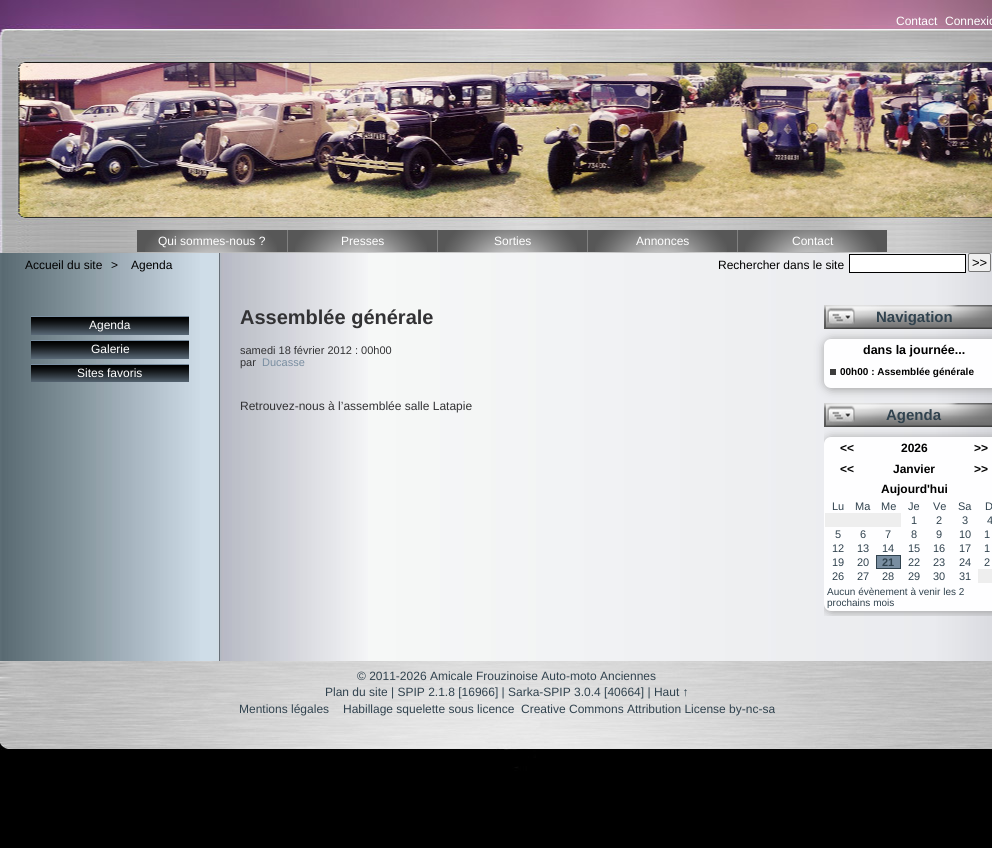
import math
import cairo

surface = cairo.ImageSurface(cairo.FORMAT_RGB24, 992, 848)
ctx = cairo.Context(surface)
options = cairo.FontOptions()
options.set_hint_metrics(cairo.HINT_METRICS_OFF)
options.set_hint_style(cairo.HINT_STYLE_NONE)
ctx.set_font_options(options)
ctx.set_miter_limit(4)


def set_color(code):
    ctx.set_source_rgb(*(v / 255 for v in bytes.fromhex(code[-6:])))


def draw_text(x, y, s, family, size, color, bold=False, italic=False):
    ctx.select_font_face(family, cairo.FONT_SLANT_ITALIC if italic else cairo.FONT_SLANT_NORMAL, cairo.FONT_WEIGHT_BOLD if bold else cairo.FONT_WEIGHT_NORMAL)
    ctx.set_font_size(size)
    set_color(color)
    ctx.move_to(x, y)
    ctx.show_text(s)


def fill_rect(x, y, w, h, color):
    set_color(color)
    ctx.rectangle(x, y, w, h)
    ctx.fill()


def rounded_rect(x, y, w, h, r):
    ctx.new_sub_path()
    for i, (u, v) in enumerate([(x + w - r, y + h - r), (x + r, y + h - r), (x + r, y + r), (x + w - r, y + r)]):
        ctx.arc(u, v, r, i * math.pi / 2, (i + 1) * math.pi / 2)
    ctx.close_path()


def draw_shadow(x, y, w, h, r, blur, alpha):
    ctx.push_group_with_content(cairo.CONTENT_ALPHA)
    ctx.set_operator(cairo.OPERATOR_SOURCE)
    for i in range(15, -16, -2):
        e = blur * i / 6
        if min(w, h) + 2 * e > 0:
            ctx.set_source_rgba(0, 0, 0, alpha * math.erfc((i - 1) / 8.5) / 2)
            rounded_rect(x - e, y - e, w + 2 * e, h + 2 * e, max(0, min(r + e + blur * .6, min(w, h) / 2 + e)))
            ctx.fill()
    ctx.mask(ctx.pop_group())


def draw_image(path, x, y, w, h):
    ctx.save()
    ctx.set_source_surface(cairo.ImageSurface.create_from_png(path), x, y)
    ctx.rectangle(x, y, w, h)
    ctx.fill()
    ctx.restore()


set_color("#000000")
ctx.paint()
draw_image("assets/img1.png", 0, 253, 992, 408)
draw_image("assets/img2.png", 0, 0, 992, 230)
draw_text(896, 25, "Contact", "Liberation Sans", 12, "#ffffff")
draw_text(945, 25, "Connexio", "Liberation Sans", 12, "#ffffff")
draw_image("assets/img3.png", 0, 230, 992, 23)
fill_rect(137, 230, 150, 22, "#575757")
draw_image("assets/img4.png", 145, 230, 132, 22)
draw_text(158, 245, "Qui sommes-nous ?", "Liberation Sans", 12, "#ffffff")
fill_rect(288, 230, 149, 22, "#575757")
draw_image("assets/img4.png", 295, 230, 132, 22)
fill_rect(287, 230, 1, 22, "#808080")
draw_text(341, 245, "Presses", "Liberation Sans", 12, "#ffffff")
fill_rect(438, 230, 149, 22, "#575757")
draw_image("assets/img4.png", 445, 230, 132, 22)
fill_rect(437, 230, 1, 22, "#808080")
draw_text(494, 245, "Sorties", "Liberation Sans", 12, "#ffffff")
fill_rect(588, 230, 149, 22, "#575757")
draw_image("assets/img4.png", 595, 230, 132, 22)
fill_rect(587, 230, 1, 22, "#808080")
draw_text(636, 245, "Annonces", "Liberation Sans", 12, "#ffffff")
fill_rect(738, 230, 149, 22, "#575757")
draw_image("assets/img4.png", 745, 230, 132, 22)
fill_rect(737, 230, 1, 22, "#808080")
draw_text(792, 245, "Contact", "Liberation Sans", 12, "#ffffff")
draw_text(25, 269, "Accueil du site", "Liberation Sans", 12, "#000000")
draw_text(111, 269, ">", "Liberation Sans", 12, "#000000")
draw_text(131, 269, "Agenda", "Liberation Sans", 12, "#000000")
draw_text(718, 269, "Rechercher dans le site", "Liberation Sans", 12, "#000000")
set_color("#ffffff")
ctx.rectangle(849.5, 254.5, 116, 18)
ctx.fill_preserve()
set_color("#000000")
ctx.set_line_width(1)
ctx.stroke()
set_color("#efefef")
rounded_rect(968.5, 253.5, 22, 18, 1.5)
ctx.fill_preserve()
set_color("#767676")
ctx.stroke()
draw_text(972, 267, ">>", "Liberation Sans", 13, "#000000")
fill_rect(31, 316, 158, 19, "#798ea1")
draw_image("assets/img5.png", 31, 317, 158, 18)
draw_text(89, 329, "Agenda", "Liberation Sans", 12, "#ffffff")
fill_rect(31, 340, 158, 19, "#798ea1")
draw_image("assets/img5.png", 31, 341, 158, 18)
draw_text(91, 353, "Galerie", "Liberation Sans", 12, "#ffffff")
fill_rect(31, 364, 158, 18, "#798ea1")
draw_image("assets/img6.png", 31, 365, 158, 17)
draw_text(77, 377, "Sites favoris", "Liberation Sans", 12, "#ffffff")
draw_text(240, 324, "Assemblée générale", "Liberation Sans", 20, "#323234", bold=True)
draw_text(240, 354, "samedi 18 février 2012 : 00h00", "Liberation Sans", 11, "#323234")
draw_text(240, 366, "par", "Liberation Sans", 11, "#323234")
draw_text(262, 366, "Ducasse", "Liberation Sans", 11, "#798ea1")
draw_text(240, 410, "Retrouvez-nous à l’assemblée salle Latapie", "Liberation Sans", 12, "#323234")
draw_image("assets/img7.png", 824, 305, 168, 24)
set_color("#999999")
draw_shadow(825, 340, 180, 49, 7, 5, 1)
draw_text(876, 322, "Navigation", "Liberation Sans", 15, "#30424e", bold=True)
set_color("#fefeff")
rounded_rect(824, 339, 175, 49, 7)
ctx.fill()
draw_text(863, 354, "dans la journée...", "Liberation Sans", 12.5, "#000000", bold=True)
fill_rect(830, 369, 6, 6, "#3d3d3d")
draw_text(840, 375, "00h00 : Assemblée générale", "Liberation Sans", 10, "#000000", bold=True)
draw_image("assets/img8.png", 824, 403, 168, 24)
ctx.save()
ctx.rectangle(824, 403, 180, 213)
ctx.clip()
set_color("#999999")
draw_shadow(825, 438, 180, 174, 7, 5, 1)
ctx.restore()
draw_text(886, 420, "Agenda", "Liberation Sans", 15, "#30424e", bold=True)
set_color("#fefeff")
rounded_rect(824, 437, 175, 174, 7)
ctx.fill()
draw_text(840, 452, "<<", "Liberation Sans", 12, "#000000", bold=True)
draw_text(901, 452, "2026", "Liberation Sans", 12, "#000000", bold=True)
draw_text(974, 452, ">>", "Liberation Sans", 12, "#000000", bold=True)
draw_text(840, 473, "<<", "Liberation Sans", 12, "#000000", bold=True)
draw_text(893, 473, "Janvier", "Liberation Sans", 12, "#000000", bold=True)
draw_text(974, 473, ">>", "Liberation Sans", 12, "#000000", bold=True)
draw_text(881, 493, "Aujourd'hui", "Liberation Sans", 12, "#000000", bold=True)
draw_text(832, 510, "Lu", "Liberation Sans", 11, "#30424e")
draw_text(855, 510, "Ma", "Liberation Sans", 11, "#30424e")
draw_text(881, 510, "Me", "Liberation Sans", 11, "#30424e")
draw_text(908, 510, "Je", "Liberation Sans", 11, "#30424e")
draw_text(933, 510, "Ve", "Liberation Sans", 11, "#30424e")
draw_text(958, 510, "Sa", "Liberation Sans", 11, "#30424e")
draw_text(985, 510, "D", "Liberation Sans", 11, "#30424e")
fill_rect(825, 513, 76, 14, "#eeeeee")
draw_text(911, 524, "1", "Liberation Sans", 11, "#30424e")
draw_text(936, 524, "2", "Liberation Sans", 11, "#30424e")
draw_text(962, 524, "3", "Liberation Sans", 11, "#30424e")
draw_text(987, 524, "4", "Liberation Sans", 11, "#30424e")
draw_text(835, 538, "5", "Liberation Sans", 11, "#30424e")
draw_text(860, 538, "6", "Liberation Sans", 11, "#30424e")
draw_text(885, 538, "7", "Liberation Sans", 11, "#30424e")
draw_text(911, 538, "8", "Liberation Sans", 11, "#30424e")
draw_text(936, 538, "9", "Liberation Sans", 11, "#30424e")
draw_text(959, 538, "10", "Liberation Sans", 11, "#30424e")
draw_text(984, 538, "1", "Liberation Sans", 11, "#30424e")
draw_text(832, 552, "12", "Liberation Sans", 11, "#30424e")
draw_text(857, 552, "13", "Liberation Sans", 11, "#30424e")
draw_text(882, 552, "14", "Liberation Sans", 11, "#30424e")
draw_text(908, 552, "15", "Liberation Sans", 11, "#30424e")
draw_text(933, 552, "16", "Liberation Sans", 11, "#30424e")
draw_text(959, 552, "17", "Liberation Sans", 11, "#30424e")
draw_text(984, 552, "1", "Liberation Sans", 11, "#30424e")
draw_text(832, 566, "19", "Liberation Sans", 11, "#30424e")
draw_text(857, 566, "20", "Liberation Sans", 11, "#30424e")
set_color("#798ea1")
ctx.rectangle(876.5, 555.5, 24, 13)
ctx.fill_preserve()
set_color("#30424e")
ctx.stroke()
draw_text(882, 566, "21", "Liberation Sans", 11, "#30424e", bold=True)
draw_text(908, 566, "22", "Liberation Sans", 11, "#30424e")
draw_text(933, 566, "23", "Liberation Sans", 11, "#30424e")
draw_text(959, 566, "24", "Liberation Sans", 11, "#30424e")
draw_text(984, 566, "2", "Liberation Sans", 11, "#30424e")
draw_text(832, 580, "26", "Liberation Sans", 11, "#30424e")
draw_text(857, 580, "27", "Liberation Sans", 11, "#30424e")
draw_text(882, 580, "28", "Liberation Sans", 11, "#30424e")
draw_text(908, 580, "29", "Liberation Sans", 11, "#30424e")
draw_text(933, 580, "30", "Liberation Sans", 11, "#30424e")
draw_text(959, 580, "31", "Liberation Sans", 11, "#30424e")
fill_rect(978, 569, 14, 14, "#eeeeee")
draw_text(827, 595, "Aucun évènement à venir les 2", "Liberation Sans", 10, "#30424e")
draw_text(827, 606, "prochains mois", "Liberation Sans", 10, "#30424e")
draw_image("assets/img9.png", 0, 661, 992, 110)
draw_text(357, 680, "© 2011-2026 Amicale Frouzinoise Auto-moto Anciennes", "Liberation Sans", 12, "#30424e")
draw_text(325, 696, "Plan du site | SPIP 2.1.8 [16966] | Sarka-SPIP 3.0.4 [40664] | Haut ↑", "Liberation Sans", 12, "#30424e")
draw_text(239, 713, "Mentions légales", "Liberation Sans", 12, "#30424e")
draw_text(343, 713, "Habillage squelette sous licence", "Liberation Sans", 12, "#30424e")
draw_text(521, 713, "Creative Commons Attribution License by-nc-sa", "Liberation Sans", 12, "#30424e")
surface.write_to_png("output.png")
